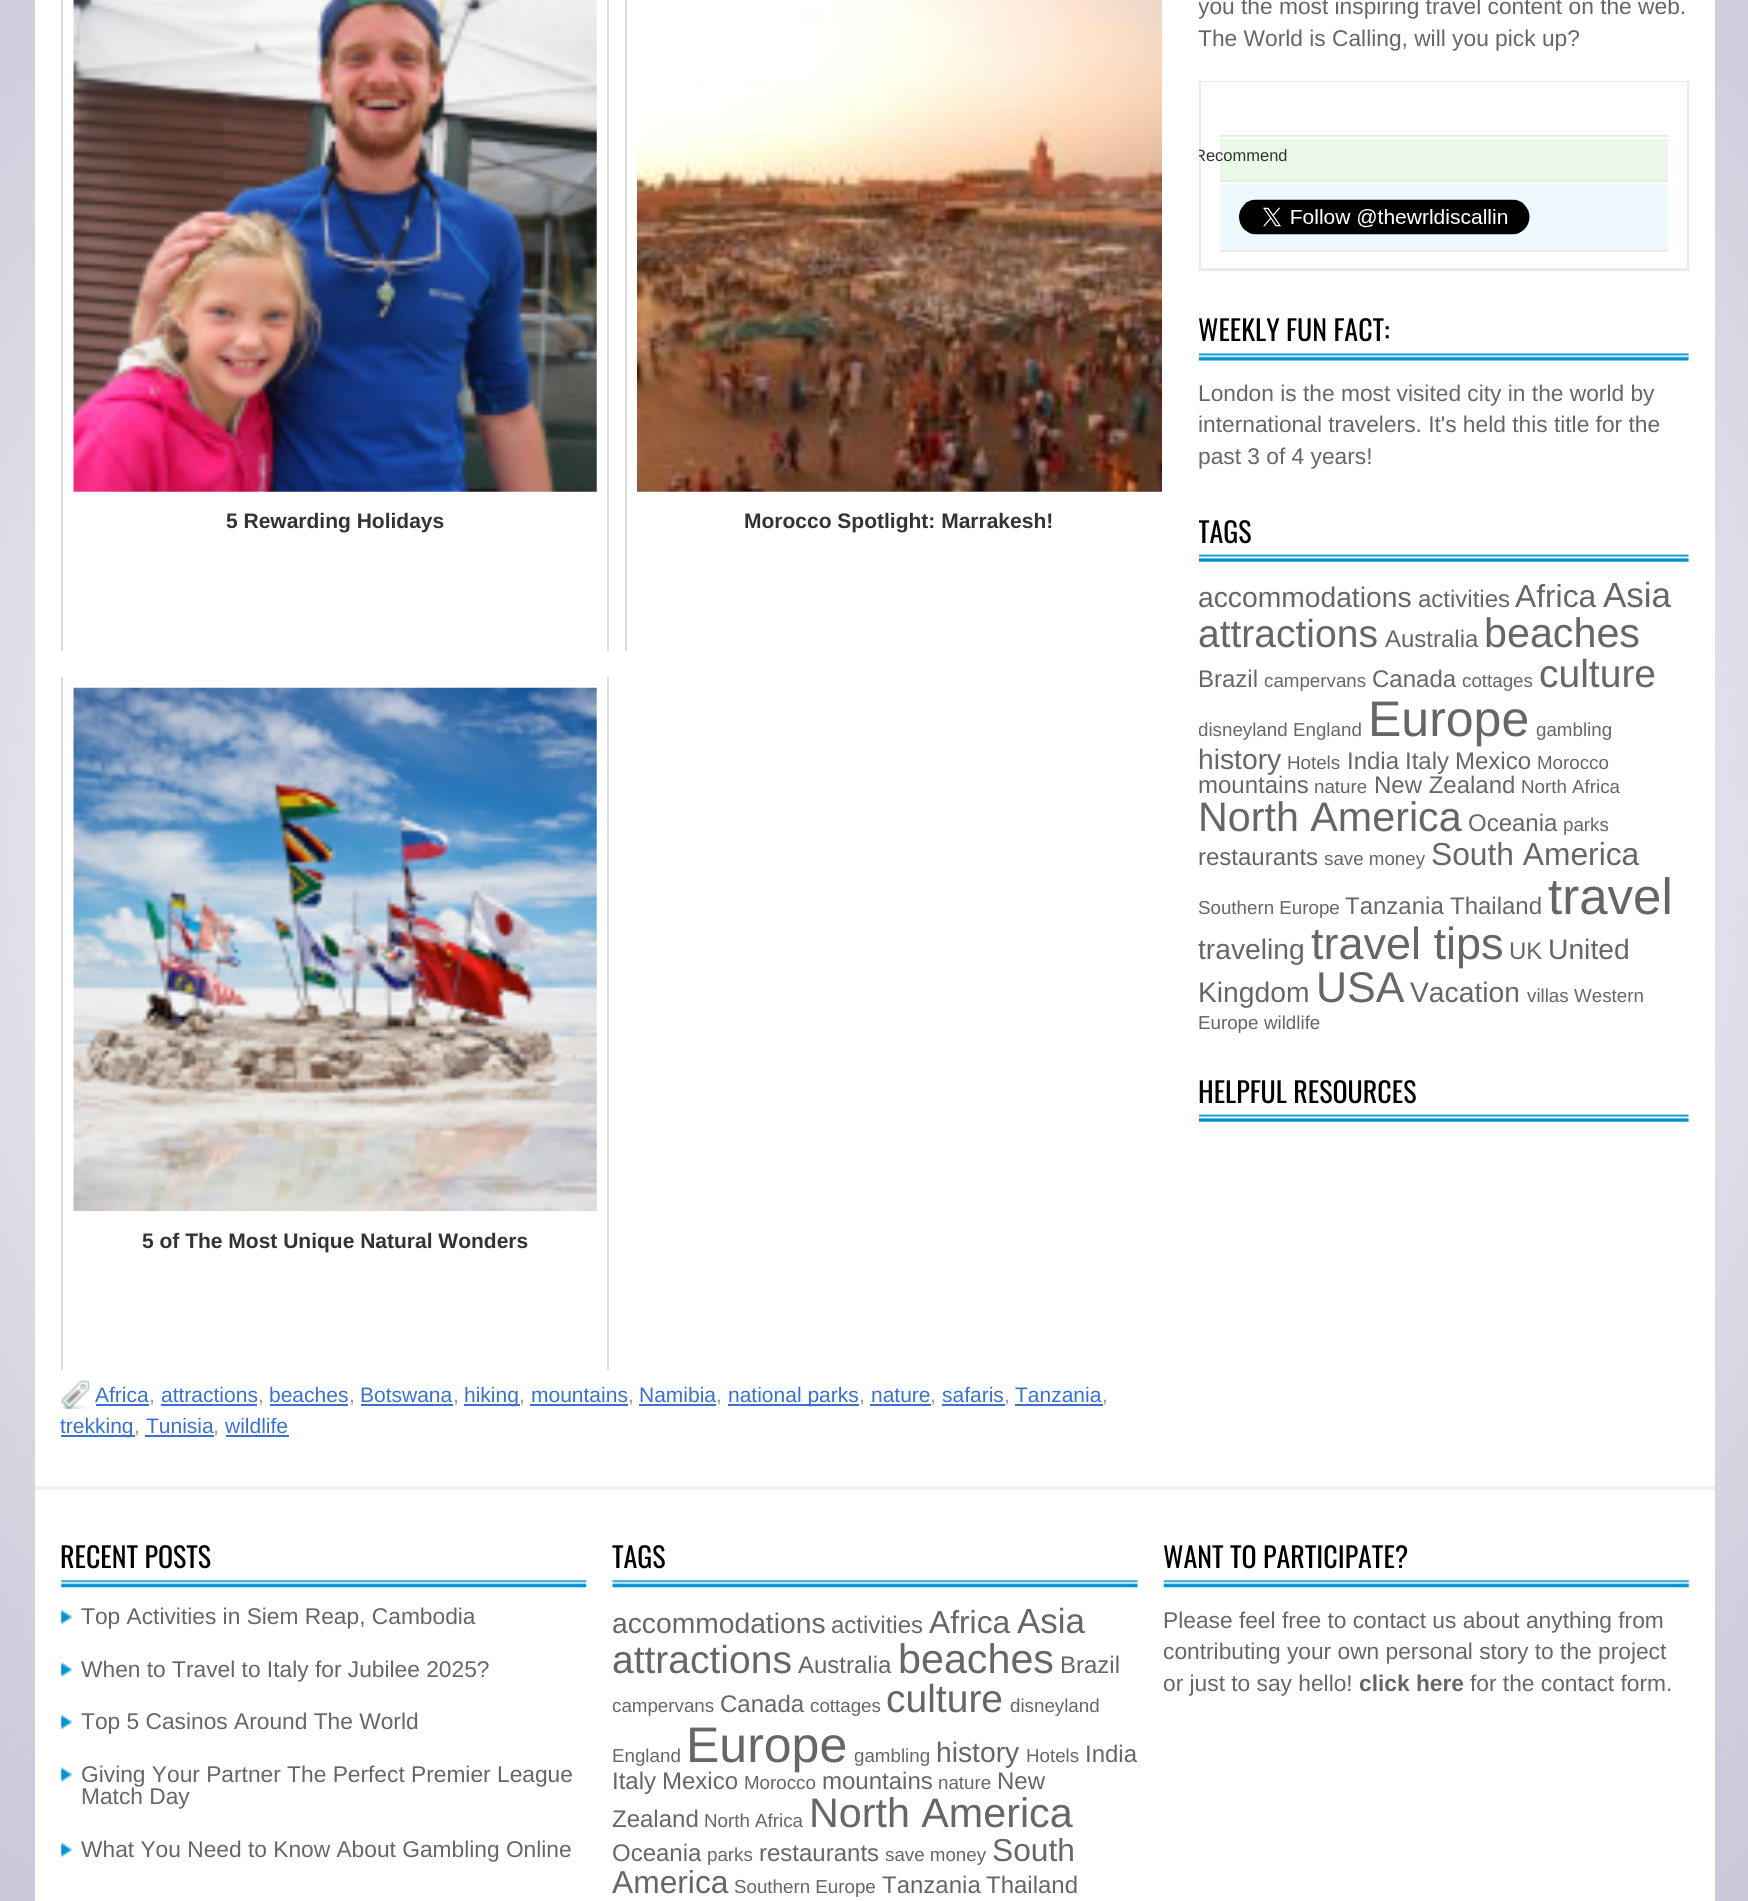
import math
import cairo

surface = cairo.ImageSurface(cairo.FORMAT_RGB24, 1748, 1901)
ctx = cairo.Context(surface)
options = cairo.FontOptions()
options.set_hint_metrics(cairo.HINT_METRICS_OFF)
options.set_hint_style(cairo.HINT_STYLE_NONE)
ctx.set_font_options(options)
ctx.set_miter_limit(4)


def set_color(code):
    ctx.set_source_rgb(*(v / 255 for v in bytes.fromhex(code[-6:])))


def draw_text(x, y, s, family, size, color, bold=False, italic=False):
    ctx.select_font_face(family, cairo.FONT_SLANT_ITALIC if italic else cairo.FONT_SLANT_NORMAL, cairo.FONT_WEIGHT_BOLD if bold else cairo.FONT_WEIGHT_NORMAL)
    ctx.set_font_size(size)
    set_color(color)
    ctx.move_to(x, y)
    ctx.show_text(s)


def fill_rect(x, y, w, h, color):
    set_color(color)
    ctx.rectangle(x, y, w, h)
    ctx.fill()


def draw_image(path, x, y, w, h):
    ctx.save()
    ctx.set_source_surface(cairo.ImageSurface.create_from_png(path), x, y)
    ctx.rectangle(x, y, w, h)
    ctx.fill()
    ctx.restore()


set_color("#ffffff")
ctx.paint()
draw_image("assets/img1.png", 0, 0, 1748, 1901)
fill_rect(35, 0, 1680, 1486, "#ffffff")
fill_rect(607, 0, 2, 651, "#dddddd")
fill_rect(61, 0, 2, 651, "#dddddd")
draw_image("assets/img2.png", 73, 0, 524, 492)
draw_text(226, 528, "5 Rewarding Holidays", "Liberation Sans", 21, "#333333", bold=True)
fill_rect(625, 0, 2, 651, "#dddddd")
draw_image("assets/img3.png", 637, 0, 525, 492)
draw_text(744, 528, "Morocco Spotlight: Marrakesh!", "Liberation Sans", 21, "#333333", bold=True)
fill_rect(607, 677, 2, 693, "#dddddd")
fill_rect(61, 677, 2, 693, "#dddddd")
draw_image("assets/img4.png", 73, 687, 524, 524)
draw_text(142, 1248, "5 of The Most Unique Natural Wonders", "Liberation Sans", 21, "#333333", bold=True)
draw_image("assets/img5.png", 61, 1380, 29, 29)
draw_text(95, 1402, "Africa", "Liberation Sans", 21, "#3971ce")
draw_text(149, 1402, ",", "Liberation Sans", 21, "#999999")
fill_rect(96, 1404, 53, 2, "#3971ce")
draw_text(161, 1402, "attractions", "Liberation Sans", 21, "#3971ce")
draw_text(258, 1402, ",", "Liberation Sans", 21, "#999999")
fill_rect(161, 1404, 96, 2, "#3971ce")
draw_text(269, 1402, "beaches", "Liberation Sans", 21, "#3971ce")
draw_text(349, 1402, ",", "Liberation Sans", 21, "#999999")
fill_rect(270, 1404, 78, 2, "#3971ce")
draw_text(360, 1402, "Botswana", "Liberation Sans", 21, "#3971ce")
draw_text(453, 1402, ",", "Liberation Sans", 21, "#999999")
fill_rect(361, 1404, 92, 2, "#3971ce")
fill_rect(464, 1404, 56, 2, "#3971ce")
draw_text(464, 1402, "hiking", "Liberation Sans", 21, "#3971ce")
draw_text(519, 1402, ",", "Liberation Sans", 21, "#999999")
draw_text(531, 1402, "mountains", "Liberation Sans", 21, "#3971ce")
draw_text(628, 1402, ",", "Liberation Sans", 21, "#999999")
fill_rect(530, 1404, 98, 2, "#3971ce")
draw_text(639, 1402, "Namibia", "Liberation Sans", 21, "#3971ce")
draw_text(716, 1402, ",", "Liberation Sans", 21, "#999999")
fill_rect(639, 1404, 77, 2, "#3971ce")
fill_rect(728, 1404, 131, 2, "#3971ce")
draw_text(728, 1402, "national parks", "Liberation Sans", 21, "#3971ce")
draw_text(859, 1402, ",", "Liberation Sans", 21, "#999999")
draw_text(871, 1402, "nature", "Liberation Sans", 21, "#3971ce")
draw_text(930, 1402, ",", "Liberation Sans", 21, "#999999")
fill_rect(870, 1404, 61, 2, "#3971ce")
draw_text(942, 1402, "safaris", "Liberation Sans", 21, "#3971ce")
draw_text(1004, 1402, ",", "Liberation Sans", 21, "#999999")
fill_rect(942, 1404, 63, 2, "#3971ce")
draw_text(1015, 1402, "Tanzania", "Liberation Sans", 21, "#3971ce")
draw_text(1102, 1402, ",", "Liberation Sans", 21, "#999999")
fill_rect(1015, 1404, 88, 2, "#3971ce")
fill_rect(61, 1435, 74, 2, "#3971ce")
draw_text(60, 1433, "trekking", "Liberation Sans", 21, "#3971ce")
draw_text(134, 1433, ",", "Liberation Sans", 21, "#999999")
draw_text(146, 1433, "Tunisia", "Liberation Sans", 21, "#3971ce")
draw_text(213, 1433, ",", "Liberation Sans", 21, "#999999")
fill_rect(145, 1435, 69, 2, "#3971ce")
fill_rect(226, 1435, 63, 2, "#3971ce")
draw_text(225, 1433, "wildlife", "Liberation Sans", 21, "#3971ce")
ctx.save()
ctx.rectangle(1199, 0, 490, 1148)
ctx.clip()
draw_text(1198, 14, "you the most inspiring travel content on the web.", "Liberation Sans", 22.75, "#666666")
ctx.restore()
draw_text(1198, 46, "The World is Calling, will you pick up?", "Liberation Sans", 22.75, "#666666")
ctx.rectangle(1200, 82, 488, 188)
set_color("#ebebeb")
ctx.stroke()
fill_rect(1201, 82, 486, 1, "#ffffff")
fill_rect(1201, 268, 486, 1, "#ebebeb")
fill_rect(1220, 135, 448, 2, "#ebebeb")
fill_rect(1220, 139, 448, 41, "#ebf9e8")
fill_rect(1220, 180, 448, 2, "#ebebeb")
ctx.save()
ctx.rectangle(1199, 0, 490, 1148)
ctx.clip()
draw_text(1194, 161, "Recommend", "Liberation Sans", 16.5, "#333333")
ctx.restore()
fill_rect(1220, 184, 448, 66, "#eef9fd")
fill_rect(1220, 250, 448, 2, "#ebebeb")
draw_image("assets/img6.png", 1239, 199, 291, 36)
draw_image("assets/img7.png", 1198, 353, 491, 8)
draw_text(1198, 341, "WEEKLY FUN FACT:", "Oswald", 28, "#000000")
draw_text(1198, 401, "London is the most visited city in the world by", "Liberation Sans", 22.75, "#666666")
draw_text(1198, 432, "international travelers. It's held this title for the", "Liberation Sans", 22.75, "#666666")
draw_text(1198, 464, "past 3 of 4 years!", "Liberation Sans", 22.75, "#666666")
draw_image("assets/img8.png", 1198, 554, 491, 8)
ctx.save()
ctx.rectangle(1199, 0, 490, 1148)
ctx.clip()
draw_text(1198, 543, "TAGS", "Oswald", 28, "#000000")
ctx.restore()
draw_text(1198, 607, "accommodations", "Liberation Sans", 28.25, "#666666")
draw_text(1418, 607, "activities", "Liberation Sans", 24, "#666666")
draw_text(1515, 607, "Africa", "Liberation Sans", 31.75, "#666666")
draw_text(1603, 607, "Asia", "Liberation Sans", 35, "#666666")
draw_text(1198, 647, "attractions", "Liberation Sans", 39, "#666666")
draw_text(1385, 647, "Australia", "Liberation Sans", 24, "#666666")
draw_text(1484, 647, "beaches", "Liberation Sans", 41.25, "#666666")
draw_text(1198, 687, "Brazil", "Liberation Sans", 24, "#666666")
draw_text(1264, 687, "campervans", "Liberation Sans", 18.75, "#666666")
draw_text(1372, 687, "Canada", "Liberation Sans", 24, "#666666")
draw_text(1462, 687, "cottages", "Liberation Sans", 18.75, "#666666")
draw_text(1539, 687, "culture", "Liberation Sans", 39, "#666666")
ctx.save()
ctx.rectangle(1199, 0, 490, 1148)
ctx.clip()
draw_text(1198, 736, "disneyland", "Liberation Sans", 18.75, "#666666")
ctx.restore()
draw_text(1293, 736, "England", "Liberation Sans", 18.75, "#666666")
draw_text(1368, 736, "Europe", "Liberation Sans", 50, "#666666")
draw_text(1536, 736, "gambling", "Liberation Sans", 18.75, "#666666")
draw_text(1198, 769, "history", "Liberation Sans", 28.25, "#666666")
draw_text(1287, 769, "Hotels", "Liberation Sans", 18.75, "#666666")
draw_text(1347, 769, "India", "Liberation Sans", 24, "#666666")
draw_text(1405, 769, "Italy", "Liberation Sans", 24, "#666666")
draw_text(1455, 769, "Mexico", "Liberation Sans", 24, "#666666")
draw_text(1537, 769, "Morocco", "Liberation Sans", 18.75, "#666666")
draw_text(1198, 793, "mountains", "Liberation Sans", 24, "#666666")
draw_text(1314, 793, "nature", "Liberation Sans", 18.75, "#666666")
draw_text(1374, 793, "New Zealand", "Liberation Sans", 24, "#666666")
draw_text(1521, 793, "North Africa", "Liberation Sans", 18.75, "#666666")
draw_text(1198, 831, "North America", "Liberation Sans", 41.25, "#666666")
draw_text(1468, 831, "Oceania", "Liberation Sans", 24, "#666666")
draw_text(1563, 831, "parks", "Liberation Sans", 18.75, "#666666")
draw_text(1198, 865, "restaurants", "Liberation Sans", 24, "#666666")
draw_text(1324, 865, "save money", "Liberation Sans", 18.75, "#666666")
draw_text(1431, 865, "South America", "Liberation Sans", 31.75, "#666666")
draw_text(1198, 914, "Southern Europe", "Liberation Sans", 18.75, "#666666")
draw_text(1345, 914, "Tanzania", "Liberation Sans", 24, "#666666")
draw_text(1450, 914, "Thailand", "Liberation Sans", 24, "#666666")
draw_text(1548, 914, "travel", "Liberation Sans", 51, "#666666")
draw_text(1198, 959, "traveling", "Liberation Sans", 28.25, "#666666")
draw_text(1311, 959, "travel tips", "Liberation Sans", 45, "#666666")
draw_text(1509, 959, "UK", "Liberation Sans", 24, "#666666")
draw_text(1548, 959, "United", "Liberation Sans", 28.25, "#666666")
draw_text(1198, 1002, "Kingdom", "Liberation Sans", 28.25, "#666666")
draw_text(1316, 1002, "USA", "Liberation Sans", 43, "#666666")
draw_text(1410, 1002, "Vacation", "Liberation Sans", 28.25, "#666666")
draw_text(1527, 1002, "villas", "Liberation Sans", 18.75, "#666666")
draw_text(1574, 1002, "Western", "Liberation Sans", 18.75, "#666666")
draw_text(1198, 1029, "Europe", "Liberation Sans", 18.75, "#666666")
draw_text(1264, 1029, "wildlife", "Liberation Sans", 18.75, "#666666")
draw_image("assets/img8.png", 1198, 1114, 491, 8)
draw_text(1198, 1103, "HELPFUL RESOURCES", "Oswald", 28, "#000000")
fill_rect(35, 1490, 1680, 411, "#ffffff")
fill_rect(35, 1486, 1680, 4, "#f1f1f1")
draw_image("assets/img9.png", 61, 1579, 526, 9)
draw_text(60, 1568, "RECENT POSTS", "Oswald", 28, "#000000")
draw_image("assets/img10.png", 61, 1610, 11, 14)
draw_text(81, 1624, "Top Activities in Siem Reap, Cambodia", "Liberation Sans", 22.75, "#666666")
draw_image("assets/img11.png", 61, 1662, 11, 15)
draw_text(81, 1677, "When to Travel to Italy for Jubilee 2025?", "Liberation Sans", 22.75, "#666666")
draw_image("assets/img10.png", 61, 1715, 11, 14)
draw_text(81, 1729, "Top 5 Casinos Around The World", "Liberation Sans", 22.75, "#666666")
draw_image("assets/img11.png", 61, 1767, 11, 15)
draw_text(81, 1782, "Giving Your Partner The Perfect Premier League", "Liberation Sans", 22.75, "#666666")
draw_text(81, 1804, "Match Day", "Liberation Sans", 22.75, "#666666")
draw_image("assets/img12.png", 61, 1842, 11, 15)
draw_text(81, 1857, "What You Need to Know About Gambling Online", "Liberation Sans", 22.75, "#666666")
draw_image("assets/img13.png", 612, 1579, 526, 9)
draw_text(612, 1568, "TAGS", "Oswald", 28, "#000000")
draw_text(612, 1633, "accommodations", "Liberation Sans", 28.25, "#666666")
draw_text(831, 1633, "activities", "Liberation Sans", 24, "#666666")
draw_text(929, 1633, "Africa", "Liberation Sans", 31.75, "#666666")
draw_text(1017, 1633, "Asia", "Liberation Sans", 35, "#666666")
draw_text(612, 1673, "attractions", "Liberation Sans", 39, "#666666")
draw_text(798, 1673, "Australia", "Liberation Sans", 24, "#666666")
draw_text(898, 1673, "beaches", "Liberation Sans", 41.25, "#666666")
draw_text(1060, 1673, "Brazil", "Liberation Sans", 24, "#666666")
draw_text(612, 1712, "campervans", "Liberation Sans", 18.75, "#666666")
draw_text(720, 1712, "Canada", "Liberation Sans", 24, "#666666")
draw_text(810, 1712, "cottages", "Liberation Sans", 18.75, "#666666")
draw_text(886, 1712, "culture", "Liberation Sans", 39, "#666666")
draw_text(1010, 1712, "disneyland", "Liberation Sans", 18.75, "#666666")
draw_text(612, 1762, "England", "Liberation Sans", 18.75, "#666666")
draw_text(686, 1762, "Europe", "Liberation Sans", 50, "#666666")
draw_text(854, 1762, "gambling", "Liberation Sans", 18.75, "#666666")
draw_text(936, 1762, "history", "Liberation Sans", 28.25, "#666666")
draw_text(1026, 1762, "Hotels", "Liberation Sans", 18.75, "#666666")
draw_text(1085, 1762, "India", "Liberation Sans", 24, "#666666")
draw_text(612, 1789, "Italy", "Liberation Sans", 24, "#666666")
draw_text(662, 1789, "Mexico", "Liberation Sans", 24, "#666666")
draw_text(744, 1789, "Morocco", "Liberation Sans", 18.75, "#666666")
draw_text(822, 1789, "mountains", "Liberation Sans", 24, "#666666")
draw_text(938, 1789, "nature", "Liberation Sans", 18.75, "#666666")
draw_text(997, 1789, "New", "Liberation Sans", 24, "#666666")
draw_text(612, 1827, "Zealand", "Liberation Sans", 24, "#666666")
draw_text(704, 1827, "North Africa", "Liberation Sans", 18.75, "#666666")
draw_text(809, 1827, "North America", "Liberation Sans", 41.25, "#666666")
draw_text(612, 1861, "Oceania", "Liberation Sans", 24, "#666666")
draw_text(707, 1861, "parks", "Liberation Sans", 18.75, "#666666")
draw_text(759, 1861, "restaurants", "Liberation Sans", 24, "#666666")
draw_text(885, 1861, "save money", "Liberation Sans", 18.75, "#666666")
draw_text(992, 1861, "South", "Liberation Sans", 31.75, "#666666")
draw_text(612, 1893, "America", "Liberation Sans", 31.75, "#666666")
draw_text(734, 1893, "Southern Europe", "Liberation Sans", 18.75, "#666666")
draw_text(882, 1893, "Tanzania", "Liberation Sans", 24, "#666666")
draw_text(986, 1893, "Thailand", "Liberation Sans", 24, "#666666")
draw_image("assets/img14.png", 1163, 1579, 526, 9)
draw_text(1163, 1568, "WANT TO PARTICIPATE?", "Oswald", 28, "#000000")
draw_text(1163, 1628, "Please feel free to contact us about anything from", "Liberation Sans", 22.75, "#666666")
draw_text(1163, 1659, "contributing your own personal story to the project", "Liberation Sans", 22.75, "#666666")
draw_text(1163, 1691, "or just to say hello!", "Liberation Sans", 22.75, "#666666")
draw_text(1359, 1691, "click here", "Liberation Sans", 22.75, "#666666", bold=True)
draw_text(1470, 1691, "for the contact form.", "Liberation Sans", 22.75, "#666666")
surface.write_to_png("output.png")
